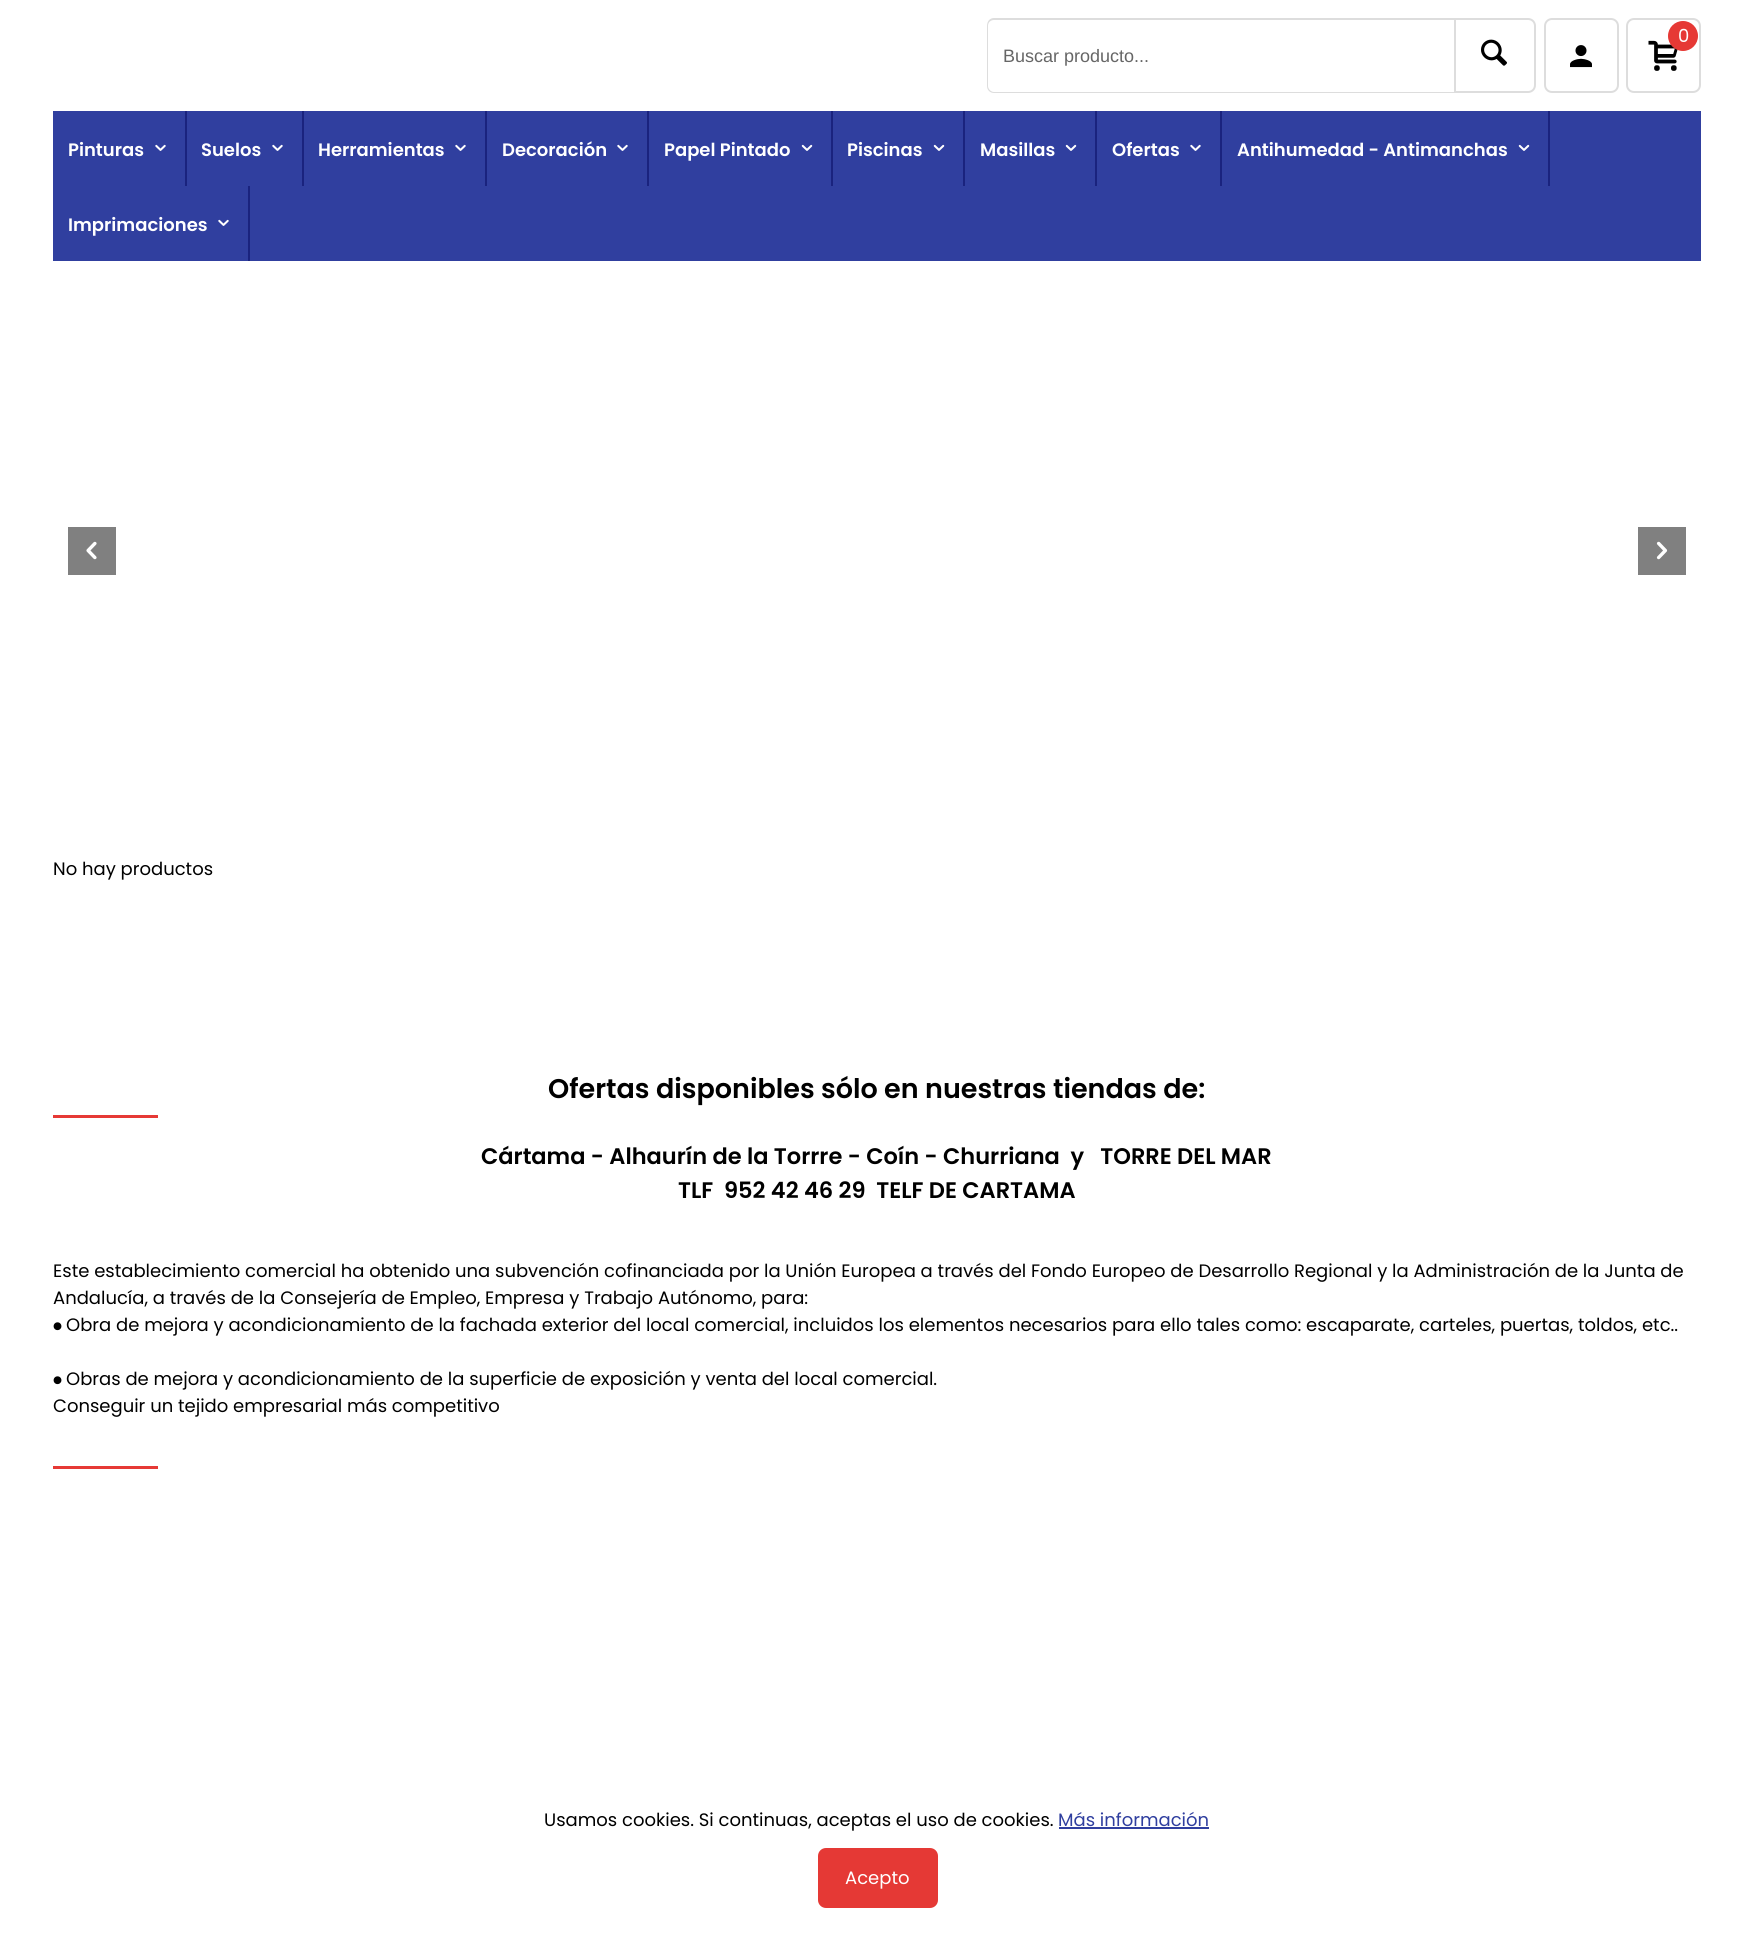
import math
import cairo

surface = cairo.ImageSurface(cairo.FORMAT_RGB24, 1753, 1938)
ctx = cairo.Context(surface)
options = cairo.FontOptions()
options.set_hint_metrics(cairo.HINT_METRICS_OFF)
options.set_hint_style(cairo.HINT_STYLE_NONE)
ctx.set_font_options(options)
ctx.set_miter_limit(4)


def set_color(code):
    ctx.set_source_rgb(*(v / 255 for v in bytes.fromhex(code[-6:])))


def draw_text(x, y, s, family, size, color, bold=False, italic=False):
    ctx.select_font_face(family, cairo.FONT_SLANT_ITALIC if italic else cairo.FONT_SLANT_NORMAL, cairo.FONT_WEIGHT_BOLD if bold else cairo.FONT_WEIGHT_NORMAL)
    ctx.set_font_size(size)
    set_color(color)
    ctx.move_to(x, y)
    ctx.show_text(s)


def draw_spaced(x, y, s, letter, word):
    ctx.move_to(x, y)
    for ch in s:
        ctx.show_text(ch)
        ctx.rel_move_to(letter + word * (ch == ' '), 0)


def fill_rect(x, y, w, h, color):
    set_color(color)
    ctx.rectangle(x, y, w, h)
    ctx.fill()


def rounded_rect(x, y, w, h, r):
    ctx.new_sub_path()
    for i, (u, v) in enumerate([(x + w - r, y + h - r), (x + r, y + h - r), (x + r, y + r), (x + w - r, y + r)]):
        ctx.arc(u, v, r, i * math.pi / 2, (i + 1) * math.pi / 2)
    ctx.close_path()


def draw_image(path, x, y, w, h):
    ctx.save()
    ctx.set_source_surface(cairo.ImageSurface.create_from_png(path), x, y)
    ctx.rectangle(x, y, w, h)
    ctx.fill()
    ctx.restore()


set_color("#ffffff")
ctx.paint()
rounded_rect(1545, 19, 73, 73, 7)
set_color("#dddddd")
ctx.stroke()
draw_image("assets/img1.png", 1570, 45, 22, 23)
rounded_rect(1627, 19, 73, 73, 7)
ctx.stroke()
draw_image("assets/img2.png", 1648, 40, 30, 31)
set_color("#e63935")
ctx.arc(1683, 36, 15, 0, 2 * math.pi)
ctx.fill()
ctx.select_font_face("Poppins")
ctx.set_font_size(18)
set_color("#ffffff")
draw_spaced(1678, 42, "0", -1, 0)
set_color("#dddddd")
ctx.set_fill_rule(cairo.FILL_RULE_EVEN_ODD)
ctx.new_path()
ctx.move_to(994, 18)
ctx.line_to(1454, 18)
ctx.line_to(1454, 93)
ctx.line_to(994, 93)
ctx.curve_to(990, 93, 987, 90, 987, 86)
ctx.line_to(987, 26)
ctx.curve_to(987, 21, 990, 18, 994, 18)
ctx.close_path()
ctx.move_to(994, 20)
ctx.line_to(1454, 20)
ctx.line_to(1454, 92)
ctx.line_to(994, 92)
ctx.curve_to(991, 92, 988, 89, 988, 86)
ctx.line_to(988, 26)
ctx.curve_to(988, 22, 991, 20, 994, 20)
ctx.close_path()
ctx.fill()
draw_text(1003, 62, "Buscar producto...", "Liberation Sans", 18, "#666666")
ctx.new_path()
ctx.move_to(1455, 19)
ctx.line_to(1528, 19)
ctx.curve_to(1532, 19, 1535, 22, 1535, 26)
ctx.line_to(1535, 85)
ctx.curve_to(1535, 89, 1532, 92, 1528, 92)
ctx.line_to(1455, 92)
ctx.close_path()
set_color("#dddddd")
ctx.stroke()
draw_image("assets/img3.png", 1481, 39, 26, 27)
fill_rect(53, 111, 1648, 150, "#303f9f")
fill_rect(185, 111, 2, 75, "#1a237e")
draw_text(68, 156, "Pinturas", "Poppins SemiBold", 18, "#ffffff")
draw_image("assets/img4.png", 155, 144, 11, 7)
fill_rect(302, 111, 2, 75, "#1a237e")
draw_text(201, 156, "Suelos", "Poppins SemiBold", 18, "#ffffff")
draw_image("assets/img4.png", 272, 144, 11, 7)
fill_rect(485, 111, 2, 75, "#1a237e")
draw_text(318, 156, "Herramientas", "Poppins SemiBold", 18, "#ffffff")
draw_image("assets/img4.png", 455, 144, 11, 7)
fill_rect(647, 111, 2, 75, "#1a237e")
draw_text(502, 156, "Decoración", "Poppins SemiBold", 18, "#ffffff")
draw_image("assets/img4.png", 617, 144, 11, 7)
fill_rect(831, 111, 2, 75, "#1a237e")
draw_text(664, 156, "Papel Pintado", "Poppins SemiBold", 18, "#ffffff")
draw_image("assets/img5.png", 801, 144, 12, 7)
fill_rect(963, 111, 2, 75, "#1a237e")
draw_text(847, 156, "Piscinas", "Poppins SemiBold", 18, "#ffffff")
draw_image("assets/img5.png", 933, 144, 12, 7)
fill_rect(1095, 111, 2, 75, "#1a237e")
draw_text(980, 156, "Masillas", "Poppins SemiBold", 18, "#ffffff")
draw_image("assets/img5.png", 1065, 144, 12, 7)
fill_rect(1220, 111, 2, 75, "#1a237e")
draw_text(1112, 156, "Ofertas", "Poppins SemiBold", 18, "#ffffff")
draw_image("assets/img4.png", 1190, 144, 11, 7)
fill_rect(1548, 111, 2, 75, "#1a237e")
draw_text(1237, 156, "Antihumedad - Antimanchas", "Poppins SemiBold", 18, "#ffffff")
draw_image("assets/img5.png", 1518, 144, 12, 7)
fill_rect(248, 186, 2, 75, "#1a237e")
draw_text(68, 231, "Imprimaciones", "Poppins SemiBold", 18, "#ffffff")
draw_image("assets/img4.png", 218, 219, 11, 7)
fill_rect(68, 527, 48, 48, "#808080")
draw_image("assets/img6.png", 86, 541, 11, 19)
fill_rect(1638, 527, 48, 48, "#808080")
draw_image("assets/img7.png", 1656, 541, 12, 19)
draw_text(53, 875, "No hay productos", "Poppins", 18, "#000000")
draw_text(548, 1098, "Ofertas disponibles sólo en nuestras tiendas de:", "Poppins SemiBold", 27, "#000000")
fill_rect(53, 1115, 105, 3, "#e63935")
draw_text(481, 1164, "Cártama - Alhaurín de la Torrre - Coín - Churriana  y   TORRE DEL MAR", "Poppins SemiBold", 22.5, "#000000")
draw_text(678, 1198, "TLF  952 42 46 29  TELF DE CARTAMA", "Poppins SemiBold", 22.5, "#000000")
draw_text(53, 1277, "Este establecimiento comercial ha obtenido una subvención cofinanciada por la Unión Europea a través del Fondo Europeo de Desarrollo Regional y la Administración de la Junta de", "Poppins", 18, "#000000")
draw_text(53, 1304, "Andalucía, a través de la Consejería de Empleo, Empresa y Trabajo Autónomo, para:", "Poppins", 18, "#000000")
draw_text(53, 1331, "⦁", "FreeSans", 18, "#000000")
draw_text(66, 1331, "Obra de mejora y acondicionamiento de la fachada exterior del local comercial, incluidos los elementos necesarios para ello tales como: escaparate, carteles, puertas, toldos, etc..", "Poppins", 18, "#000000")
draw_text(53, 1385, "⦁", "FreeSans", 18, "#000000")
draw_text(66, 1385, "Obras de mejora y acondicionamiento de la superficie de exposición y venta del local comercial.", "Poppins", 18, "#000000")
draw_text(53, 1412, "Conseguir un tejido empresarial más competitivo", "Poppins", 18, "#000000")
fill_rect(53, 1466, 105, 3, "#e63935")
draw_text(544, 1826, "Usamos cookies. Si continuas, aceptas el uso de cookies.", "Poppins", 18, "#000000")
draw_text(1058, 1826, "Más información", "Poppins", 18, "#303f9f")
fill_rect(1059, 1827, 150, 2, "#303f9f")
set_color("#e53935")
rounded_rect(819, 1849, 118, 58, 7)
ctx.fill_preserve()
ctx.stroke()
draw_text(845, 1884, "Acepto", "Poppins", 18, "#ffffff")
surface.write_to_png("output.png")
